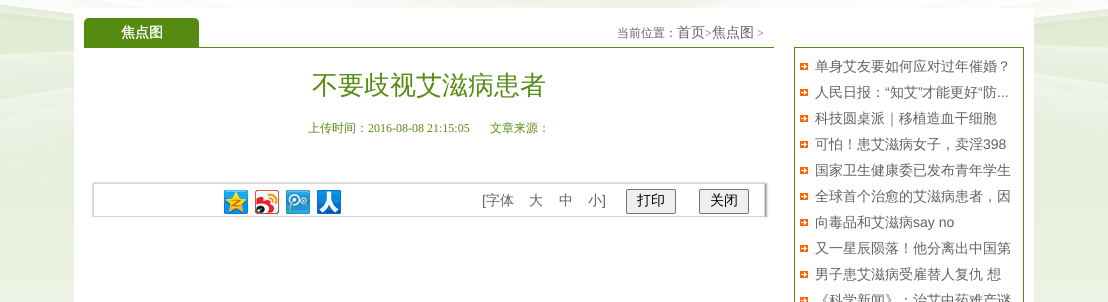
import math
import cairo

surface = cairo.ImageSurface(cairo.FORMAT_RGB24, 1108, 302)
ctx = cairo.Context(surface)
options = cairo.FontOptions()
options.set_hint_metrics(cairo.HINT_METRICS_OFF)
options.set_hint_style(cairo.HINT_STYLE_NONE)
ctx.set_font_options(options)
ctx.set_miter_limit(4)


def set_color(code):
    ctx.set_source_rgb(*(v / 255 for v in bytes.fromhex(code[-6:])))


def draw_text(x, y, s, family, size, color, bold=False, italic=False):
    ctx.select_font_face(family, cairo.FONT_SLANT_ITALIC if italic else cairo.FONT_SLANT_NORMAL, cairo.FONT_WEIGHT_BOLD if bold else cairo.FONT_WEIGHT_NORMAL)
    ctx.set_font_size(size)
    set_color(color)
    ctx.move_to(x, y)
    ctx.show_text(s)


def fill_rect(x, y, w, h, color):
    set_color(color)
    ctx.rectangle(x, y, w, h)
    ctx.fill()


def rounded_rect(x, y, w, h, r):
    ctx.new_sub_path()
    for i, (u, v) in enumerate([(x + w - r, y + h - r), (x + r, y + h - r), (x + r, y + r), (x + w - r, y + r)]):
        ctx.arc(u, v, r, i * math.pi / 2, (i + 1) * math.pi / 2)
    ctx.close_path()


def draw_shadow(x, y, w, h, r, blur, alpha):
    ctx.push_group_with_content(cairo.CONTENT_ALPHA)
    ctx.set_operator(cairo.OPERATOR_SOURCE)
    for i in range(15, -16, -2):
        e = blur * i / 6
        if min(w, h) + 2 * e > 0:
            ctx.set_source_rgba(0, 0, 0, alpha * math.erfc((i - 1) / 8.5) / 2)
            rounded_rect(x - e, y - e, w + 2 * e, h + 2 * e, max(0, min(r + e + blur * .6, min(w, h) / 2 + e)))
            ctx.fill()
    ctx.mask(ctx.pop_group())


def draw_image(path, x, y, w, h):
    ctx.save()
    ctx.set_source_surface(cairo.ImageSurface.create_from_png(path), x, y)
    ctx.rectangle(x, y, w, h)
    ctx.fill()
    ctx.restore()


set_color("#ffffff")
ctx.paint()
draw_image("assets/img1.png", 0, 0, 1108, 302)
fill_rect(74, 8, 960, 294, "#ffffff")
draw_image("assets/img2.png", 84, 18, 115, 29)
fill_rect(84, 47, 690, 1, "#558b10")
draw_text(121, 37, "焦点图", "WenQuanYi Zen Hei", 14, "#ffffff", bold=True)
draw_text(617, 37, "当前位置：", "WenQuanYi Zen Hei Medium", 12, "#616161")
draw_text(677, 37, "首页", "WenQuanYi Zen Hei Medium", 14, "#616161")
draw_text(705, 37, ">", "Liberation Serif", 12, "#616161")
draw_text(712, 37, "焦点图", "WenQuanYi Zen Hei Medium", 14, "#616161")
draw_text(757, 37, ">", "Liberation Serif", 12, "#616161")
draw_text(312, 94, "不要歧视艾滋病患者", "WenQuanYi Zen Hei Medium", 26, "#558b11")
draw_text(308, 132, "上传时间：", "WenQuanYi Zen Hei Medium", 12, "#558b11")
draw_text(368, 132, "2016-08-08 21:15:05", "Liberation Serif", 12, "#558b11")
draw_text(490, 132, "文章来源：", "WenQuanYi Zen Hei Medium", 12, "#558b11")
ctx.save()
ctx.rectangle(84, 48, 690, 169)
ctx.clip()
ctx.set_fill_rule(cairo.FILL_RULE_EVEN_ODD)
ctx.new_path()
ctx.move_to(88, 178)
ctx.line_to(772, 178)
ctx.line_to(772, 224)
ctx.line_to(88, 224)
ctx.close_path()
ctx.move_to(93, 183)
ctx.line_to(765, 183)
ctx.line_to(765, 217)
ctx.line_to(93, 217)
ctx.close_path()
ctx.clip()
set_color("#666666")
draw_shadow(94, 184, 672, 34, 0, 1.5, 1)
ctx.restore()
ctx.rectangle(93.5, 183.5, 671, 33)
set_color("#d4d4d4")
ctx.set_line_width(1)
ctx.stroke()
draw_image("assets/img3.png", 224, 190, 24, 24)
draw_image("assets/img4.png", 255, 190, 24, 24)
draw_image("assets/img5.png", 286, 190, 24, 24)
draw_image("assets/img6.png", 317, 190, 24, 24)
draw_text(482, 205, "[", "Liberation Sans", 14, "#616161")
draw_text(486, 205, "字体", "WenQuanYi Zen Hei Medium", 14, "#616161")
draw_text(529, 205, "大", "WenQuanYi Zen Hei Medium", 14, "#616161")
draw_text(559, 205, "中", "WenQuanYi Zen Hei Medium", 14, "#616161")
draw_text(588, 205, "小", "WenQuanYi Zen Hei Medium", 14, "#616161")
draw_text(602, 205, "]", "Liberation Sans", 14, "#616161")
set_color("#efefef")
rounded_rect(626.5, 189.5, 49, 24, 1.5)
ctx.fill_preserve()
set_color("#767676")
ctx.stroke()
draw_text(637, 205, "打印", "WenQuanYi Zen Hei Medium", 14, "#000000")
set_color("#efefef")
rounded_rect(699.5, 189.5, 49, 24, 1.5)
ctx.fill_preserve()
set_color("#767676")
ctx.stroke()
draw_text(710, 205, "关闭", "WenQuanYi Zen Hei Medium", 14, "#000000")
ctx.rectangle(794.5, 47.5, 229, 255)
set_color("#558b10")
ctx.stroke()
draw_image("assets/img7.png", 800, 63, 8, 7)
draw_text(815, 71, "单身艾友要如何应对过年催婚？", "WenQuanYi Zen Hei Medium", 14, "#616161")
draw_image("assets/img7.png", 800, 89, 8, 7)
draw_text(815, 97, "人民日报：", "WenQuanYi Zen Hei Medium", 14, "#616161")
draw_text(885, 97, "“", "Liberation Sans", 14, "#616161")
draw_text(890, 97, "知艾", "WenQuanYi Zen Hei Medium", 14, "#616161")
draw_text(918, 97, "”", "Liberation Sans", 14, "#616161")
draw_text(922, 97, "才能更好", "WenQuanYi Zen Hei Medium", 14, "#616161")
draw_text(978, 97, "“", "Liberation Sans", 14, "#616161")
draw_text(983, 97, "防", "WenQuanYi Zen Hei Medium", 14, "#616161")
draw_text(997, 97, "...", "Liberation Sans", 14, "#616161")
draw_image("assets/img7.png", 800, 115, 8, 7)
draw_text(815, 123, "科技圆桌派｜移植造血干细胞", "WenQuanYi Zen Hei Medium", 14, "#616161")
draw_image("assets/img7.png", 800, 141, 8, 7)
draw_text(815, 149, "可怕！患艾滋病女子，卖淫", "WenQuanYi Zen Hei Medium", 14, "#616161")
draw_text(983, 149, "398", "Liberation Sans", 14, "#616161")
draw_image("assets/img7.png", 800, 167, 8, 7)
draw_text(815, 175, "国家卫生健康委已发布青年学生", "WenQuanYi Zen Hei Medium", 14, "#616161")
draw_image("assets/img7.png", 800, 193, 8, 7)
draw_text(815, 201, "全球首个治愈的艾滋病患者，因", "WenQuanYi Zen Hei Medium", 14, "#616161")
draw_image("assets/img7.png", 800, 219, 8, 7)
draw_text(815, 227, "向毒品和艾滋病", "WenQuanYi Zen Hei Medium", 14, "#616161")
draw_text(913, 227, "say no", "Liberation Sans", 14, "#616161")
draw_image("assets/img7.png", 800, 245, 8, 7)
draw_text(815, 253, "又一星辰陨落！他分离出中国第", "WenQuanYi Zen Hei Medium", 14, "#616161")
draw_image("assets/img7.png", 800, 271, 8, 7)
draw_text(815, 279, "男子患艾滋病受雇替人复仇 想", "WenQuanYi Zen Hei Medium", 14, "#616161")
draw_image("assets/img8.png", 800, 297, 8, 5)
draw_text(815, 305, "《科学新闻》：治艾中药难产谜", "WenQuanYi Zen Hei Medium", 14, "#616161")
surface.write_to_png("output.png")
